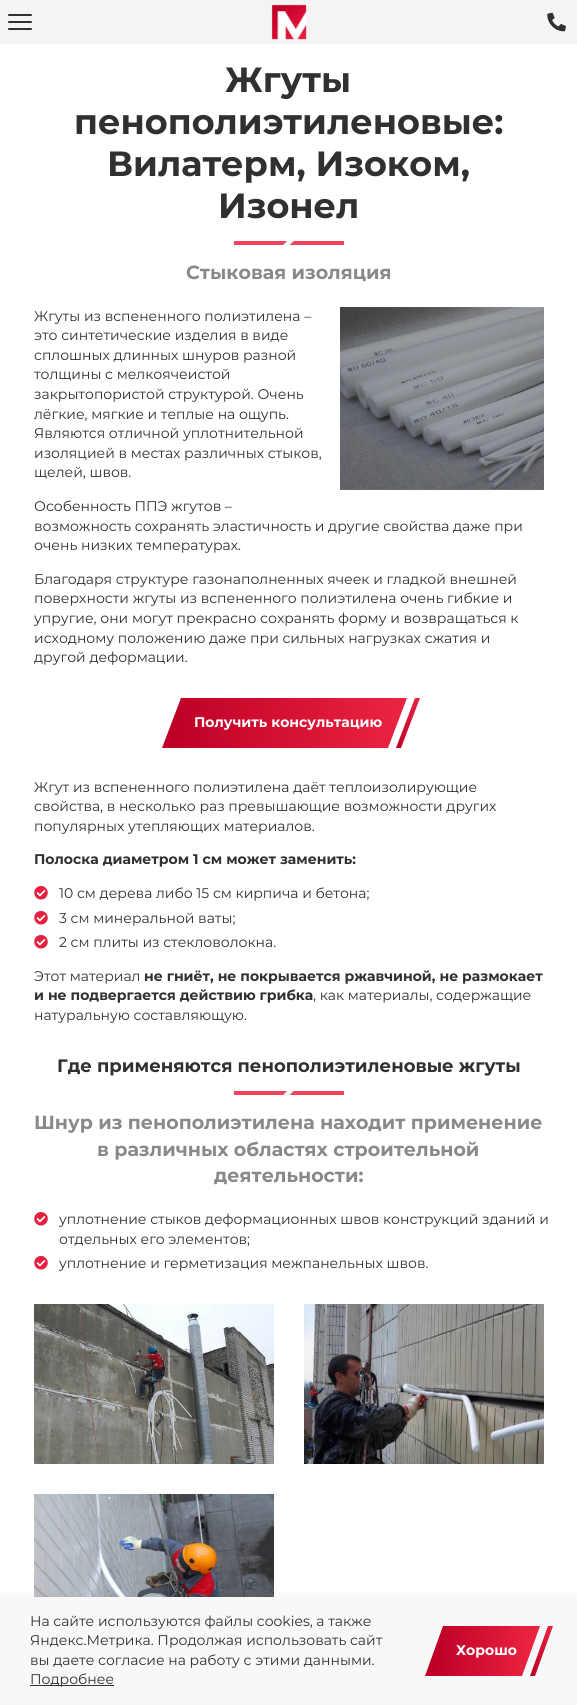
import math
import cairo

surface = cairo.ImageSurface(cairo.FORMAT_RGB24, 577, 1705)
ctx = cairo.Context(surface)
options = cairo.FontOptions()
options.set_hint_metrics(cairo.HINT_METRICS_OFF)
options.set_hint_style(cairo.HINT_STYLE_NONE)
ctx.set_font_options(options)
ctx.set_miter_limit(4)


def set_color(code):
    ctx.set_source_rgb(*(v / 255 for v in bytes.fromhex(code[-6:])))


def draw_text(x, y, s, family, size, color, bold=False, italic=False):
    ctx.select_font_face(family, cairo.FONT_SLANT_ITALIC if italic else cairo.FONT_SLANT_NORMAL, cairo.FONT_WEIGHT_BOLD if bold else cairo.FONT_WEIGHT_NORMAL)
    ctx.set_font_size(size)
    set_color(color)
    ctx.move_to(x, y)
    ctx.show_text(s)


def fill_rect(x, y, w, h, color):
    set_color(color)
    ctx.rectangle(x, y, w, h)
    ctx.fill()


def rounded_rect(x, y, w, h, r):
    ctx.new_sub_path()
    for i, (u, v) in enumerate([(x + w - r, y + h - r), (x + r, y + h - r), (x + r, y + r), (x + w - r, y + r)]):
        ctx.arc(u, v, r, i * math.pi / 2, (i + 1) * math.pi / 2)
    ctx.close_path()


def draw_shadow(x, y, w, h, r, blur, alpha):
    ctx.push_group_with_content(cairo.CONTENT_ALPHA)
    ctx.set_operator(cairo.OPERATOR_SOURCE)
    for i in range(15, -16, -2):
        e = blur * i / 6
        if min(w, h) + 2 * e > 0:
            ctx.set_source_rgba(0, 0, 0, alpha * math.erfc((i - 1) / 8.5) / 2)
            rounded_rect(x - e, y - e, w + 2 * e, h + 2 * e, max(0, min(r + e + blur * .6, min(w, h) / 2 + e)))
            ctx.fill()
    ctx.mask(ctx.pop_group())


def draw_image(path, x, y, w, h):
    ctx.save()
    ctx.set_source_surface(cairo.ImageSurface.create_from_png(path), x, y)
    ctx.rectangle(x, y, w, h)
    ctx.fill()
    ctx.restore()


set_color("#ffffff")
ctx.paint()
fill_rect(0, 0, 577, 44, "#f4f4f5")
set_color("#303030")
rounded_rect(8, 14, 24, 2, 1)
ctx.fill()
rounded_rect(8, 21, 24, 2, 1)
ctx.fill()
rounded_rect(8, 28, 24, 2, 1)
ctx.fill()
draw_image("assets/img1.png", 271, 4, 36, 36)
draw_image("assets/img2.png", 547, 12, 19, 20)
draw_text(225, 92, "Жгуты", "Montserrat", 35, "#303030", bold=True)
draw_text(74, 134, "пенополиэтиленовые:", "Montserrat", 35, "#303030", bold=True)
draw_text(107, 176, "Вилатерм, Изоком,", "Montserrat", 35, "#303030", bold=True)
draw_text(218, 218, "Изонел", "Montserrat", 35, "#303030", bold=True)
draw_image("assets/img3.png", 234, 241, 110, 4)
draw_text(186, 279, "Стыковая изоляция", "Montserrat", 19, "#898989", bold=True)
draw_image("assets/img4.png", 340, 307, 204, 183)
draw_text(34, 321, "Жгуты из вспененного полиэтилена –", "Montserrat", 14, "#303030")
draw_text(34, 340, "это синтетические изделия в виде", "Montserrat", 14, "#303030")
draw_text(34, 360, "сплошных длинных шнуров разной", "Montserrat", 14, "#303030")
draw_text(34, 379, "толщины с мелкоячеистой", "Montserrat", 14, "#303030")
draw_text(34, 399, "закрытопористой структурой. Очень", "Montserrat", 14, "#303030")
draw_text(34, 419, "лёгкие, мягкие и теплые на ощупь.", "Montserrat", 14, "#303030")
draw_text(34, 438, "Являются отличной уплотнительной", "Montserrat", 14, "#303030")
draw_text(34, 458, "изоляцией в местах различных стыков,", "Montserrat", 14, "#303030")
draw_text(34, 477, "щелей, швов.", "Montserrat", 14, "#303030")
draw_text(34, 511, "Особенность ППЭ жгутов –", "Montserrat", 14, "#303030")
draw_text(34, 531, "возможность сохранять эластичность и другие свойства даже при", "Montserrat", 14, "#303030")
draw_text(34, 550, "очень низких температурах.", "Montserrat", 14, "#303030")
draw_text(34, 584, "Благодаря структуре газонаполненных ячеек и гладкой внешней", "Montserrat", 14, "#303030")
draw_text(34, 603, "поверхности жгуты из вспененного полиэтилена очень гибкие и", "Montserrat", 14, "#303030")
draw_text(34, 623, "упругие, они могут прекрасно сохранять форму и возвращаться к", "Montserrat", 14, "#303030")
draw_text(34, 643, "исходному положению даже при сильных нагрузках сжатия и", "Montserrat", 14, "#303030")
draw_text(34, 662, "другой деформации.", "Montserrat", 14, "#303030")
gradient = cairo.LinearGradient(172, 723, 398, 723)
gradient.add_color_stop_rgba(0, 0.745, 0, 0.149, 1)
gradient.add_color_stop_rgba(1, 0.918, 0.137, 0.255, 1)
ctx.set_source(gradient)
ctx.new_path()
ctx.move_to(181, 698)
ctx.line_to(407, 698)
ctx.line_to(388, 748)
ctx.line_to(162, 748)
ctx.close_path()
ctx.fill()
gradient = cairo.LinearGradient(399, 748, 417, 698)
gradient.add_color_stop_rgba(0, 0.745, 0, 0.149, 1)
gradient.add_color_stop_rgba(1, 0.918, 0.137, 0.255, 1)
ctx.set_source(gradient)
ctx.new_path()
ctx.move_to(415, 698)
ctx.line_to(420, 698)
ctx.line_to(401, 748)
ctx.line_to(396, 748)
ctx.close_path()
ctx.fill()
draw_text(194, 727, "Получить консультацию", "Montserrat", 14, "#ffffff", bold=True)
draw_text(34, 792, "Жгут из вспененного полиэтилена даёт теплоизолирующие", "Montserrat", 14, "#303030")
draw_text(34, 811, "свойства, в несколько раз превышающие возможности других", "Montserrat", 14, "#303030")
draw_text(34, 831, "популярных утепляющих материалов.", "Montserrat", 14, "#303030")
draw_text(34, 864, "Полоска диаметром 1 см может заменить:", "Montserrat", 14, "#303030", bold=True)
draw_image("assets/img5.png", 34, 886, 14, 14)
draw_text(59, 898, "10 см дерева либо 15 см кирпича и бетона;", "Montserrat", 14, "#303030")
draw_image("assets/img5.png", 34, 911, 14, 14)
draw_text(59, 923, "3 см минеральной ваты;", "Montserrat", 14, "#303030")
draw_image("assets/img5.png", 34, 935, 14, 14)
draw_text(59, 947, "2 см плиты из стекловолокна.", "Montserrat", 14, "#303030")
draw_text(34, 981, "Этот материал", "Montserrat", 14, "#303030")
draw_text(144, 981, "не гниёт, не покрывается ржавчиной, не размокает", "Montserrat", 14, "#303030", bold=True)
draw_text(34, 1000, "и не подвергается действию грибка", "Montserrat", 14, "#303030", bold=True)
draw_text(313, 1000, ", как материалы, содержащие", "Montserrat", 14, "#303030")
draw_text(34, 1020, "натуральную составляющую.", "Montserrat", 14, "#303030")
draw_text(57, 1072, "Где применяются пенополиэтиленовые жгуты", "Montserrat", 18, "#303030", bold=True)
draw_image("assets/img3.png", 234, 1091, 110, 4)
draw_text(34, 1129, "Шнур из пенополиэтилена находит применение", "Montserrat", 19, "#898989", bold=True)
draw_text(97, 1156, "в различных областях строительной", "Montserrat", 19, "#898989", bold=True)
draw_text(214, 1182, "деятельности:", "Montserrat", 19, "#898989", bold=True)
draw_image("assets/img5.png", 34, 1212, 14, 14)
draw_text(59, 1224, "уплотнение стыков деформационных швов конструкций зданий и", "Montserrat", 14, "#303030")
draw_text(59, 1244, "отдельных его элементов;", "Montserrat", 14, "#303030")
draw_image("assets/img5.png", 34, 1256, 14, 14)
draw_text(59, 1268, "уплотнение и герметизация межпанельных швов.", "Montserrat", 14, "#303030")
draw_image("assets/img6.png", 34, 1304, 240, 160)
draw_image("assets/img7.png", 304, 1304, 240, 160)
draw_image("assets/img8.png", 34, 1494, 240, 103)
set_color("#000000")
draw_shadow(0, 1603, 577, 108, 0, 6, 0.18)
fill_rect(0, 1597, 577, 108, "#f7f8f9")
draw_text(30, 1626, "На сайте используются файлы cookies, а также", "Montserrat", 14, "#303030")
draw_text(30, 1645, "Яндекс.Метрика. Продолжая использовать сайт", "Montserrat", 14, "#303030")
draw_text(30, 1665, "вы даете согласие на работу с этими данными.", "Montserrat", 14, "#303030")
fill_rect(30, 1685, 84, 1, "#333333")
draw_text(30, 1684, "Подробнее", "Montserrat", 14, "#303030")
gradient = cairo.LinearGradient(434, 1651, 531, 1651)
gradient.add_color_stop_rgba(0, 0.745, 0, 0.149, 1)
gradient.add_color_stop_rgba(1, 0.918, 0.137, 0.255, 1)
ctx.set_source(gradient)
ctx.new_path()
ctx.move_to(443, 1626)
ctx.line_to(540, 1626)
ctx.line_to(522, 1676)
ctx.line_to(425, 1676)
ctx.close_path()
ctx.fill()
gradient = cairo.LinearGradient(532, 1676, 551, 1626)
gradient.add_color_stop_rgba(0, 0.745, 0, 0.149, 1)
gradient.add_color_stop_rgba(1, 0.918, 0.137, 0.255, 1)
ctx.set_source(gradient)
ctx.new_path()
ctx.move_to(548, 1626)
ctx.line_to(553, 1626)
ctx.line_to(535, 1676)
ctx.line_to(530, 1676)
ctx.close_path()
ctx.fill()
draw_text(456, 1655, "Хорошо", "Montserrat", 14, "#ffffff", bold=True)
surface.write_to_png("output.png")
